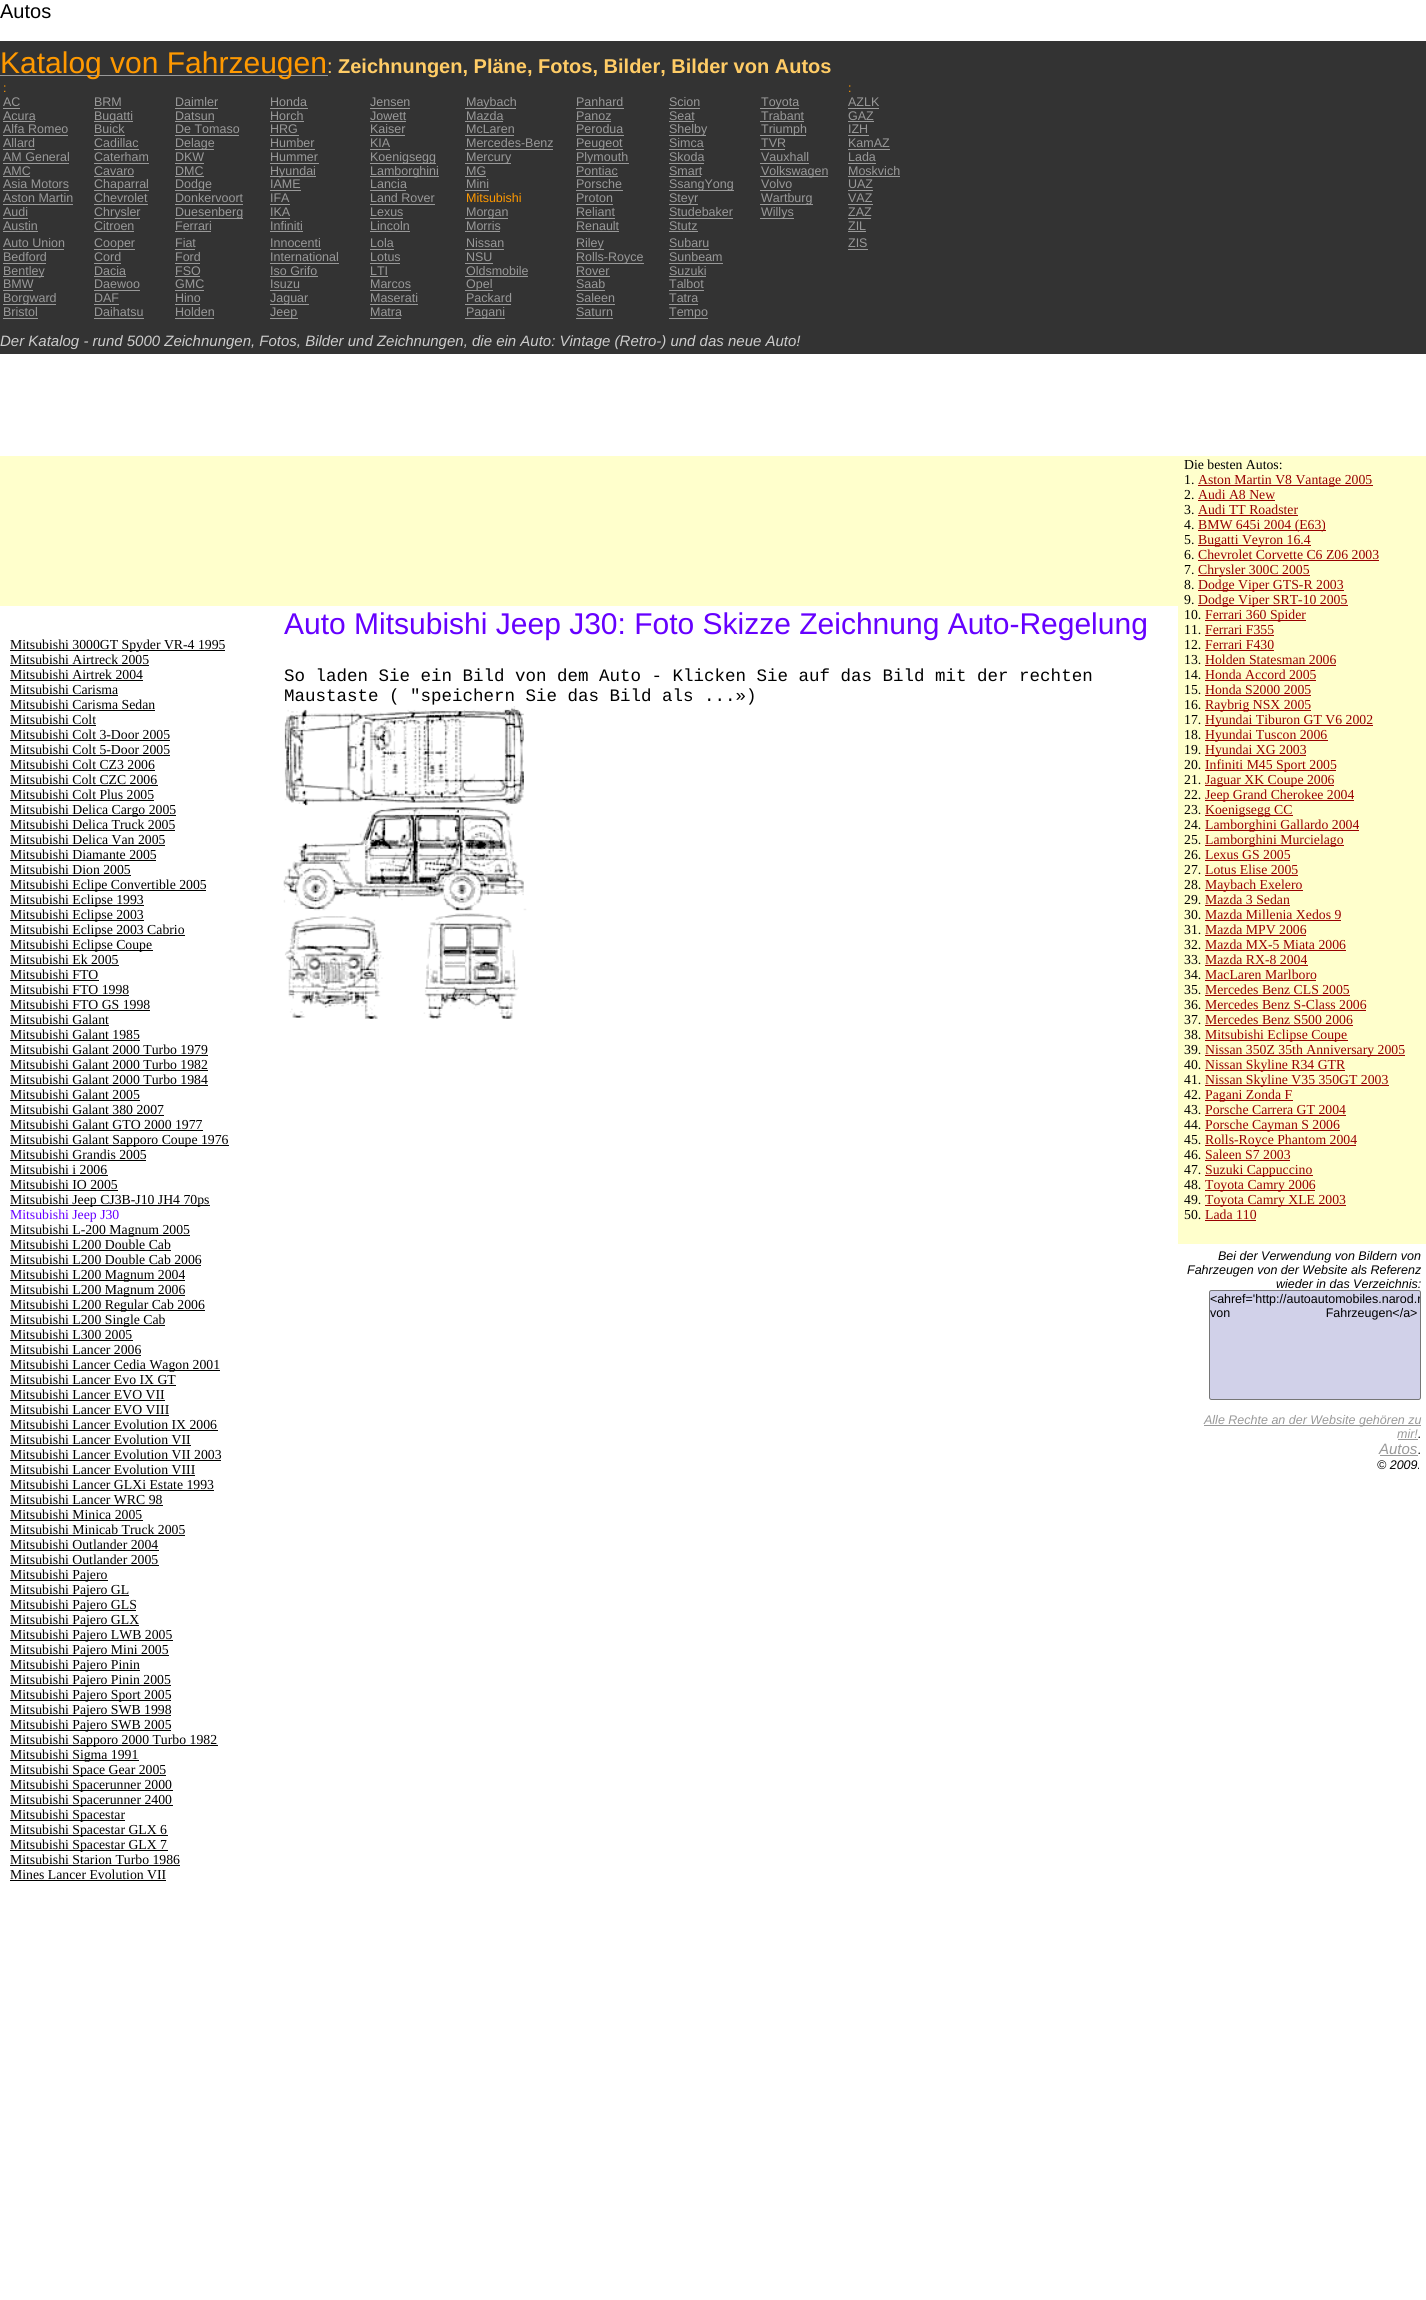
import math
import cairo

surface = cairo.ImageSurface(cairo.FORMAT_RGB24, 1426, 2300)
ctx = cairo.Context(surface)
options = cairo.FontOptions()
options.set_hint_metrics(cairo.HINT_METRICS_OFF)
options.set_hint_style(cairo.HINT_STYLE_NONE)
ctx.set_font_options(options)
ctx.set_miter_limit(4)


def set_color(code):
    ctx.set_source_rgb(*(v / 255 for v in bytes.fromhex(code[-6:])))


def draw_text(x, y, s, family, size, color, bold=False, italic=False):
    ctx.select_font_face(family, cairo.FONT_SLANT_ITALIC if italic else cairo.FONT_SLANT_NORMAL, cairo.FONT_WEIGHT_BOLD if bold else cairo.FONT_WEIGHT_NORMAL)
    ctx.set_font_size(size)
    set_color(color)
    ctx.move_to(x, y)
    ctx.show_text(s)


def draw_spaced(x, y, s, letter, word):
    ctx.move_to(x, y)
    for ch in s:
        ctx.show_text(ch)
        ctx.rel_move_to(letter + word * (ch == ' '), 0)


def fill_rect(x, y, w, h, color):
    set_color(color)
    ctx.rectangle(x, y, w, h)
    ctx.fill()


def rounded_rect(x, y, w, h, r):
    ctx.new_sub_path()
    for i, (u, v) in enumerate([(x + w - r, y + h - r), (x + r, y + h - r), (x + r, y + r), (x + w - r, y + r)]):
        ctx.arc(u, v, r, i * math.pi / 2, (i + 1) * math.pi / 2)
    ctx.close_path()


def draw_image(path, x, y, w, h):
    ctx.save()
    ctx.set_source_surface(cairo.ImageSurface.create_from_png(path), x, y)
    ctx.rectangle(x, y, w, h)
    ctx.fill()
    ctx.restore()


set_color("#ffffff")
ctx.paint()
draw_text(0, 18, "Autos", "Liberation Sans", 20, "#000000")
fill_rect(0, 41, 1426, 313, "#333333")
fill_rect(0, 75, 328, 1, "#999999")
draw_text(0, 73, "Katalog von Fahrzeugen", "Liberation Sans", 30, "#ff9900")
draw_text(327, 73, ":", "Liberation Sans", 20, "#ffcc66")
draw_text(338, 73, "Zeichnungen, Pläne, Fotos, Bilder, Bilder von Autos", "Liberation Sans", 20, "#ffcc66", bold=True)
draw_text(3, 92, ":", "Liberation Sans", 12.5, "#ff9900")
draw_text(848, 92, ":", "Liberation Sans", 12.5, "#ff9900")
draw_text(3, 106, "AC", "Liberation Sans", 12.5, "#999999")
fill_rect(3, 108, 17, 1, "#999999")
draw_text(94, 106, "BRM", "Liberation Sans", 12.5, "#999999")
fill_rect(94, 108, 27, 1, "#999999")
draw_text(175, 106, "Daimler", "Liberation Sans", 12.5, "#999999")
fill_rect(175, 108, 43, 1, "#999999")
draw_text(270, 106, "Honda", "Liberation Sans", 12.5, "#999999")
fill_rect(270, 108, 38, 1, "#999999")
draw_text(370, 106, "Jensen", "Liberation Sans", 12.5, "#999999")
fill_rect(370, 108, 40, 1, "#999999")
fill_rect(465, 108, 51, 1, "#999999")
draw_text(466, 106, "Maybach", "Liberation Sans", 12.5, "#999999")
draw_text(576, 106, "Panhard", "Liberation Sans", 12.5, "#999999")
fill_rect(576, 108, 48, 1, "#999999")
draw_text(669, 106, "Scion", "Liberation Sans", 12.5, "#999999")
fill_rect(669, 108, 31, 1, "#999999")
fill_rect(760, 108, 39, 1, "#999999")
draw_text(761, 106, "Toyota", "Liberation Sans", 12.5, "#999999")
draw_text(848, 106, "AZLK", "Liberation Sans", 12.5, "#999999")
fill_rect(848, 108, 31, 1, "#999999")
draw_text(3, 120, "Acura", "Liberation Sans", 12.5, "#999999")
fill_rect(3, 121, 32, 1, "#999999")
fill_rect(94, 121, 39, 1, "#999999")
draw_text(94, 120, "Bugatti", "Liberation Sans", 12.5, "#999999")
draw_text(175, 120, "Datsun", "Liberation Sans", 12.5, "#999999")
fill_rect(175, 121, 39, 1, "#999999")
draw_text(270, 120, "Horch", "Liberation Sans", 12.5, "#999999")
fill_rect(270, 121, 34, 1, "#999999")
draw_text(370, 120, "Jowett", "Liberation Sans", 12.5, "#999999")
fill_rect(370, 121, 36, 1, "#999999")
draw_text(466, 120, "Mazda", "Liberation Sans", 12.5, "#999999")
fill_rect(465, 121, 38, 1, "#999999")
draw_text(576, 120, "Panoz", "Liberation Sans", 12.5, "#999999")
fill_rect(576, 121, 35, 1, "#999999")
draw_text(669, 120, "Seat", "Liberation Sans", 12.5, "#999999")
fill_rect(669, 121, 25, 1, "#999999")
draw_text(761, 120, "Trabant", "Liberation Sans", 12.5, "#999999")
fill_rect(760, 121, 44, 1, "#999999")
draw_text(848, 120, "GAZ", "Liberation Sans", 12.5, "#999999")
fill_rect(848, 121, 26, 1, "#999999")
draw_text(3, 133, "Alfa Romeo", "Liberation Sans", 12.5, "#999999")
fill_rect(3, 135, 65, 1, "#999999")
draw_text(94, 133, "Buick", "Liberation Sans", 12.5, "#999999")
fill_rect(94, 135, 31, 1, "#999999")
draw_text(175, 133, "De Tomaso", "Liberation Sans", 12.5, "#999999")
fill_rect(175, 135, 64, 1, "#999999")
draw_text(270, 133, "HRG", "Liberation Sans", 12.5, "#999999")
fill_rect(270, 135, 29, 1, "#999999")
draw_text(370, 133, "Kaiser", "Liberation Sans", 12.5, "#999999")
fill_rect(370, 135, 35, 1, "#999999")
draw_text(466, 133, "McLaren", "Liberation Sans", 12.5, "#999999")
fill_rect(465, 135, 49, 1, "#999999")
draw_text(576, 133, "Perodua", "Liberation Sans", 12.5, "#999999")
fill_rect(576, 135, 48, 1, "#999999")
fill_rect(669, 135, 37, 1, "#999999")
draw_text(669, 133, "Shelby", "Liberation Sans", 12.5, "#999999")
fill_rect(760, 135, 46, 1, "#999999")
draw_text(761, 133, "Triumph", "Liberation Sans", 12.5, "#999999")
draw_text(848, 133, "IZH", "Liberation Sans", 12.5, "#999999")
fill_rect(848, 135, 21, 1, "#999999")
draw_text(3, 147, "Allard", "Liberation Sans", 12.5, "#999999")
fill_rect(3, 149, 32, 1, "#999999")
draw_text(94, 147, "Cadillac", "Liberation Sans", 12.5, "#999999")
fill_rect(94, 149, 45, 1, "#999999")
fill_rect(175, 149, 39, 1, "#999999")
draw_text(175, 147, "Delage", "Liberation Sans", 12.5, "#999999")
draw_text(270, 147, "Humber", "Liberation Sans", 12.5, "#999999")
fill_rect(270, 149, 45, 1, "#999999")
draw_text(370, 147, "KIA", "Liberation Sans", 12.5, "#999999")
fill_rect(370, 149, 20, 1, "#999999")
draw_text(466, 147, "Mercedes-Benz", "Liberation Sans", 12.5, "#999999")
fill_rect(465, 149, 88, 1, "#999999")
fill_rect(576, 149, 47, 1, "#999999")
draw_text(576, 147, "Peugeot", "Liberation Sans", 12.5, "#999999")
draw_text(669, 147, "Simca", "Liberation Sans", 12.5, "#999999")
fill_rect(669, 149, 35, 1, "#999999")
draw_text(761, 147, "TVR", "Liberation Sans", 12.5, "#999999")
fill_rect(760, 149, 25, 1, "#999999")
draw_text(848, 147, "KamAZ", "Liberation Sans", 12.5, "#999999")
fill_rect(848, 149, 42, 1, "#999999")
draw_text(3, 161, "AM General", "Liberation Sans", 12.5, "#999999")
fill_rect(3, 163, 66, 1, "#999999")
draw_text(94, 161, "Caterham", "Liberation Sans", 12.5, "#999999")
fill_rect(94, 163, 55, 1, "#999999")
draw_text(175, 161, "DKW", "Liberation Sans", 12.5, "#999999")
fill_rect(175, 163, 29, 1, "#999999")
draw_text(270, 161, "Hummer", "Liberation Sans", 12.5, "#999999")
fill_rect(270, 163, 49, 1, "#999999")
fill_rect(370, 163, 66, 1, "#999999")
draw_text(370, 161, "Koenigsegg", "Liberation Sans", 12.5, "#999999")
fill_rect(465, 163, 46, 1, "#999999")
draw_text(466, 161, "Mercury", "Liberation Sans", 12.5, "#999999")
fill_rect(576, 163, 53, 1, "#999999")
draw_text(576, 161, "Plymouth", "Liberation Sans", 12.5, "#999999")
draw_text(669, 161, "Skoda", "Liberation Sans", 12.5, "#999999")
fill_rect(669, 163, 35, 1, "#999999")
draw_text(761, 161, "Vauxhall", "Liberation Sans", 12.5, "#999999")
fill_rect(760, 163, 49, 1, "#999999")
draw_text(848, 161, "Lada", "Liberation Sans", 12.5, "#999999")
fill_rect(848, 163, 28, 1, "#999999")
draw_text(3, 175, "AMC", "Liberation Sans", 12.5, "#999999")
fill_rect(3, 176, 27, 1, "#999999")
draw_text(94, 175, "Cavaro", "Liberation Sans", 12.5, "#999999")
fill_rect(94, 176, 40, 1, "#999999")
draw_text(175, 175, "DMC", "Liberation Sans", 12.5, "#999999")
fill_rect(175, 176, 29, 1, "#999999")
fill_rect(270, 176, 46, 1, "#999999")
draw_text(270, 175, "Hyundai", "Liberation Sans", 12.5, "#999999")
fill_rect(370, 176, 69, 1, "#999999")
draw_text(370, 175, "Lamborghini", "Liberation Sans", 12.5, "#999999")
draw_text(466, 175, "MG", "Liberation Sans", 12.5, "#999999")
fill_rect(465, 176, 21, 1, "#999999")
draw_text(576, 175, "Pontiac", "Liberation Sans", 12.5, "#999999")
fill_rect(576, 176, 42, 1, "#999999")
draw_text(669, 175, "Smart", "Liberation Sans", 12.5, "#999999")
fill_rect(669, 176, 32, 1, "#999999")
fill_rect(760, 176, 68, 1, "#999999")
draw_text(761, 175, "Volkswagen", "Liberation Sans", 12.5, "#999999")
draw_text(848, 175, "Moskvich", "Liberation Sans", 12.5, "#999999")
fill_rect(848, 176, 52, 1, "#999999")
draw_text(3, 188, "Asia Motors", "Liberation Sans", 12.5, "#999999")
fill_rect(3, 190, 66, 1, "#999999")
fill_rect(94, 190, 55, 1, "#999999")
draw_text(94, 188, "Chaparral", "Liberation Sans", 12.5, "#999999")
fill_rect(175, 190, 36, 1, "#999999")
draw_text(175, 188, "Dodge", "Liberation Sans", 12.5, "#999999")
draw_text(270, 188, "IAME", "Liberation Sans", 12.5, "#999999")
fill_rect(270, 190, 31, 1, "#999999")
draw_text(370, 188, "Lancia", "Liberation Sans", 12.5, "#999999")
fill_rect(370, 190, 36, 1, "#999999")
draw_text(466, 188, "Mini", "Liberation Sans", 12.5, "#999999")
fill_rect(465, 190, 24, 1, "#999999")
draw_text(576, 188, "Porsche", "Liberation Sans", 12.5, "#999999")
fill_rect(576, 190, 47, 1, "#999999")
fill_rect(669, 190, 65, 1, "#999999")
draw_text(669, 188, "SsangYong", "Liberation Sans", 12.5, "#999999")
draw_text(761, 188, "Volvo", "Liberation Sans", 12.5, "#999999")
fill_rect(760, 190, 31, 1, "#999999")
draw_text(848, 188, "UAZ", "Liberation Sans", 12.5, "#999999")
fill_rect(848, 190, 25, 1, "#999999")
draw_text(3, 202, "Aston Martin", "Liberation Sans", 12.5, "#999999")
fill_rect(3, 204, 70, 1, "#999999")
draw_text(94, 202, "Chevrolet", "Liberation Sans", 12.5, "#999999")
fill_rect(94, 204, 54, 1, "#999999")
draw_text(175, 202, "Donkervoort", "Liberation Sans", 12.5, "#999999")
fill_rect(175, 204, 68, 1, "#999999")
draw_text(270, 202, "IFA", "Liberation Sans", 12.5, "#999999")
fill_rect(270, 204, 20, 1, "#999999")
draw_text(370, 202, "Land Rover", "Liberation Sans", 12.5, "#999999")
fill_rect(370, 204, 65, 1, "#999999")
draw_text(466, 202, "Mitsubishi", "Liberation Sans", 12.5, "#ff9900")
draw_text(576, 202, "Proton", "Liberation Sans", 12.5, "#999999")
fill_rect(576, 204, 37, 1, "#999999")
fill_rect(669, 204, 29, 1, "#999999")
draw_text(669, 202, "Steyr", "Liberation Sans", 12.5, "#999999")
fill_rect(760, 204, 53, 1, "#999999")
draw_text(761, 202, "Wartburg", "Liberation Sans", 12.5, "#999999")
draw_text(848, 202, "VAZ", "Liberation Sans", 12.5, "#999999")
fill_rect(848, 204, 25, 1, "#999999")
draw_text(3, 216, "Audi", "Liberation Sans", 12.5, "#999999")
fill_rect(3, 218, 25, 1, "#999999")
fill_rect(94, 218, 46, 1, "#999999")
draw_text(94, 216, "Chrysler", "Liberation Sans", 12.5, "#999999")
fill_rect(175, 218, 68, 1, "#999999")
draw_text(175, 216, "Duesenberg", "Liberation Sans", 12.5, "#999999")
draw_text(270, 216, "IKA", "Liberation Sans", 12.5, "#999999")
fill_rect(270, 218, 20, 1, "#999999")
draw_text(370, 216, "Lexus", "Liberation Sans", 12.5, "#999999")
fill_rect(370, 218, 33, 1, "#999999")
fill_rect(465, 218, 43, 1, "#999999")
draw_text(466, 216, "Morgan", "Liberation Sans", 12.5, "#999999")
draw_text(576, 216, "Reliant", "Liberation Sans", 12.5, "#999999")
fill_rect(576, 218, 39, 1, "#999999")
draw_text(669, 216, "Studebaker", "Liberation Sans", 12.5, "#999999")
fill_rect(669, 218, 64, 1, "#999999")
fill_rect(760, 218, 34, 1, "#999999")
draw_text(761, 216, "Willys", "Liberation Sans", 12.5, "#999999")
draw_text(848, 216, "ZAZ", "Liberation Sans", 12.5, "#999999")
fill_rect(848, 218, 23, 1, "#999999")
draw_text(3, 230, "Austin", "Liberation Sans", 12.5, "#999999")
fill_rect(3, 231, 35, 1, "#999999")
draw_text(94, 230, "Citroen", "Liberation Sans", 12.5, "#999999")
fill_rect(94, 231, 40, 1, "#999999")
draw_text(175, 230, "Ferrari", "Liberation Sans", 12.5, "#999999")
fill_rect(175, 231, 36, 1, "#999999")
draw_text(270, 230, "Infiniti", "Liberation Sans", 12.5, "#999999")
fill_rect(270, 231, 33, 1, "#999999")
draw_text(370, 230, "Lincoln", "Liberation Sans", 12.5, "#999999")
fill_rect(370, 231, 40, 1, "#999999")
draw_text(466, 230, "Morris", "Liberation Sans", 12.5, "#999999")
fill_rect(465, 231, 35, 1, "#999999")
draw_text(576, 230, "Renault", "Liberation Sans", 12.5, "#999999")
fill_rect(576, 231, 43, 1, "#999999")
draw_text(669, 230, "Stutz", "Liberation Sans", 12.5, "#999999")
fill_rect(669, 231, 29, 1, "#999999")
draw_text(848, 230, "ZIL", "Liberation Sans", 12.5, "#999999")
fill_rect(848, 231, 18, 1, "#999999")
draw_text(3, 247, "Auto Union", "Liberation Sans", 12.5, "#999999")
fill_rect(3, 249, 61, 1, "#999999")
fill_rect(94, 249, 41, 1, "#999999")
draw_text(94, 247, "Cooper", "Liberation Sans", 12.5, "#999999")
draw_text(175, 247, "Fiat", "Liberation Sans", 12.5, "#999999")
fill_rect(175, 249, 20, 1, "#999999")
draw_text(270, 247, "Innocenti", "Liberation Sans", 12.5, "#999999")
fill_rect(270, 249, 51, 1, "#999999")
draw_text(370, 247, "Lola", "Liberation Sans", 12.5, "#999999")
fill_rect(370, 249, 24, 1, "#999999")
draw_text(466, 247, "Nissan", "Liberation Sans", 12.5, "#999999")
fill_rect(465, 249, 39, 1, "#999999")
fill_rect(576, 249, 28, 1, "#999999")
draw_text(576, 247, "Riley", "Liberation Sans", 12.5, "#999999")
draw_text(669, 247, "Subaru", "Liberation Sans", 12.5, "#999999")
fill_rect(669, 249, 40, 1, "#999999")
draw_text(848, 247, "ZIS", "Liberation Sans", 12.5, "#999999")
fill_rect(848, 249, 20, 1, "#999999")
draw_text(3, 261, "Bedford", "Liberation Sans", 12.5, "#999999")
fill_rect(3, 263, 43, 1, "#999999")
draw_text(94, 261, "Cord", "Liberation Sans", 12.5, "#999999")
fill_rect(94, 263, 27, 1, "#999999")
draw_text(175, 261, "Ford", "Liberation Sans", 12.5, "#999999")
fill_rect(175, 263, 25, 1, "#999999")
draw_text(270, 261, "International", "Liberation Sans", 12.5, "#999999")
fill_rect(270, 263, 69, 1, "#999999")
draw_text(370, 261, "Lotus", "Liberation Sans", 12.5, "#999999")
fill_rect(370, 263, 30, 1, "#999999")
draw_text(466, 261, "NSU", "Liberation Sans", 12.5, "#999999")
fill_rect(465, 263, 28, 1, "#999999")
fill_rect(576, 263, 68, 1, "#999999")
draw_text(576, 261, "Rolls-Royce", "Liberation Sans", 12.5, "#999999")
draw_text(669, 261, "Sunbeam", "Liberation Sans", 12.5, "#999999")
fill_rect(669, 263, 54, 1, "#999999")
fill_rect(3, 276, 41, 1, "#999999")
draw_text(3, 275, "Bentley", "Liberation Sans", 12.5, "#999999")
draw_text(94, 275, "Dacia", "Liberation Sans", 12.5, "#999999")
fill_rect(94, 276, 32, 1, "#999999")
draw_text(175, 275, "FSO", "Liberation Sans", 12.5, "#999999")
fill_rect(175, 276, 25, 1, "#999999")
draw_text(270, 275, "Iso Grifo", "Liberation Sans", 12.5, "#999999")
fill_rect(270, 276, 48, 1, "#999999")
draw_text(370, 275, "LTI", "Liberation Sans", 12.5, "#999999")
fill_rect(370, 276, 18, 1, "#999999")
draw_text(466, 275, "Oldsmobile", "Liberation Sans", 12.5, "#999999")
fill_rect(465, 276, 63, 1, "#999999")
draw_text(576, 275, "Rover", "Liberation Sans", 12.5, "#999999")
fill_rect(576, 276, 34, 1, "#999999")
draw_text(669, 275, "Suzuki", "Liberation Sans", 12.5, "#999999")
fill_rect(669, 276, 37, 1, "#999999")
draw_text(3, 288, "BMW", "Liberation Sans", 12.5, "#999999")
fill_rect(3, 290, 30, 1, "#999999")
draw_text(94, 288, "Daewoo", "Liberation Sans", 12.5, "#999999")
fill_rect(94, 290, 46, 1, "#999999")
draw_text(175, 288, "GMC", "Liberation Sans", 12.5, "#999999")
fill_rect(175, 290, 29, 1, "#999999")
draw_text(270, 288, "Isuzu", "Liberation Sans", 12.5, "#999999")
fill_rect(270, 290, 30, 1, "#999999")
draw_text(370, 288, "Marcos", "Liberation Sans", 12.5, "#999999")
fill_rect(370, 290, 41, 1, "#999999")
fill_rect(465, 290, 28, 1, "#999999")
draw_text(466, 288, "Opel", "Liberation Sans", 12.5, "#999999")
draw_text(576, 288, "Saab", "Liberation Sans", 12.5, "#999999")
fill_rect(576, 290, 29, 1, "#999999")
draw_text(669, 288, "Talbot", "Liberation Sans", 12.5, "#999999")
fill_rect(669, 290, 35, 1, "#999999")
fill_rect(3, 304, 53, 1, "#999999")
draw_text(3, 302, "Borgward", "Liberation Sans", 12.5, "#999999")
draw_text(94, 302, "DAF", "Liberation Sans", 12.5, "#999999")
fill_rect(94, 304, 25, 1, "#999999")
draw_text(175, 302, "Hino", "Liberation Sans", 12.5, "#999999")
fill_rect(175, 304, 25, 1, "#999999")
fill_rect(270, 304, 39, 1, "#999999")
draw_text(270, 302, "Jaguar", "Liberation Sans", 12.5, "#999999")
draw_text(370, 302, "Maserati", "Liberation Sans", 12.5, "#999999")
fill_rect(370, 304, 48, 1, "#999999")
draw_text(466, 302, "Packard", "Liberation Sans", 12.5, "#999999")
fill_rect(465, 304, 46, 1, "#999999")
draw_text(576, 302, "Saleen", "Liberation Sans", 12.5, "#999999")
fill_rect(576, 304, 39, 1, "#999999")
draw_text(669, 302, "Tatra", "Liberation Sans", 12.5, "#999999")
fill_rect(669, 304, 29, 1, "#999999")
draw_text(3, 316, "Bristol", "Liberation Sans", 12.5, "#999999")
fill_rect(3, 318, 35, 1, "#999999")
draw_text(94, 316, "Daihatsu", "Liberation Sans", 12.5, "#999999")
fill_rect(94, 318, 50, 1, "#999999")
draw_text(175, 316, "Holden", "Liberation Sans", 12.5, "#999999")
fill_rect(175, 318, 39, 1, "#999999")
fill_rect(270, 318, 28, 1, "#999999")
draw_text(270, 316, "Jeep", "Liberation Sans", 12.5, "#999999")
draw_text(370, 316, "Matra", "Liberation Sans", 12.5, "#999999")
fill_rect(370, 318, 31, 1, "#999999")
fill_rect(465, 318, 40, 1, "#999999")
draw_text(466, 316, "Pagani", "Liberation Sans", 12.5, "#999999")
draw_text(576, 316, "Saturn", "Liberation Sans", 12.5, "#999999")
fill_rect(576, 318, 37, 1, "#999999")
fill_rect(669, 318, 39, 1, "#999999")
draw_text(669, 316, "Tempo", "Liberation Sans", 12.5, "#999999")
draw_text(0, 346, "Der Katalog - rund 5000 Zeichnungen, Fotos, Bilder und Zeichnungen, die ein Auto: Vintage (Retro-) und das neue Auto!", "Liberation Sans", 15, "#cccccc", italic=True)
fill_rect(10, 650, 215, 1, "#000000")
draw_text(10, 649, "Mitsubishi 3000GT Spyder VR-4 1995", "Liberation Serif", 13.75, "#000000")
draw_text(10, 664, "Mitsubishi Airtreck 2005", "Liberation Serif", 13.75, "#000000")
fill_rect(10, 665, 139, 1, "#000000")
draw_text(10, 679, "Mitsubishi Airtrek 2004", "Liberation Serif", 13.75, "#000000")
fill_rect(10, 680, 133, 1, "#000000")
draw_text(10, 694, "Mitsubishi Carisma", "Liberation Serif", 13.75, "#000000")
fill_rect(10, 695, 108, 1, "#000000")
draw_text(10, 709, "Mitsubishi Carisma Sedan", "Liberation Serif", 13.75, "#000000")
fill_rect(10, 710, 145, 1, "#000000")
draw_text(10, 724, "Mitsubishi Colt", "Liberation Serif", 13.75, "#000000")
fill_rect(10, 725, 86, 1, "#000000")
draw_text(10, 739, "Mitsubishi Colt 3-Door 2005", "Liberation Serif", 13.75, "#000000")
fill_rect(10, 740, 160, 1, "#000000")
draw_text(10, 754, "Mitsubishi Colt 5-Door 2005", "Liberation Serif", 13.75, "#000000")
fill_rect(10, 755, 160, 1, "#000000")
draw_text(10, 769, "Mitsubishi Colt CZ3 2006", "Liberation Serif", 13.75, "#000000")
fill_rect(10, 770, 145, 1, "#000000")
draw_text(10, 784, "Mitsubishi Colt CZC 2006", "Liberation Serif", 13.75, "#000000")
fill_rect(10, 785, 148, 1, "#000000")
draw_text(10, 799, "Mitsubishi Colt Plus 2005", "Liberation Serif", 13.75, "#000000")
fill_rect(10, 800, 144, 1, "#000000")
fill_rect(10, 815, 166, 1, "#000000")
draw_text(10, 814, "Mitsubishi Delica Cargo 2005", "Liberation Serif", 13.75, "#000000")
draw_text(10, 829, "Mitsubishi Delica Truck 2005", "Liberation Serif", 13.75, "#000000")
fill_rect(10, 830, 165, 1, "#000000")
draw_text(10, 844, "Mitsubishi Delica Van 2005", "Liberation Serif", 13.75, "#000000")
fill_rect(10, 845, 155, 1, "#000000")
draw_text(10, 859, "Mitsubishi Diamante 2005", "Liberation Serif", 13.75, "#000000")
fill_rect(10, 860, 146, 1, "#000000")
draw_text(10, 874, "Mitsubishi Dion 2005", "Liberation Serif", 13.75, "#000000")
fill_rect(10, 875, 121, 1, "#000000")
fill_rect(10, 890, 196, 1, "#000000")
draw_text(10, 889, "Mitsubishi Eclipe Convertible 2005", "Liberation Serif", 13.75, "#000000")
fill_rect(10, 905, 134, 1, "#000000")
draw_text(10, 904, "Mitsubishi Eclipse 1993", "Liberation Serif", 13.75, "#000000")
fill_rect(10, 920, 134, 1, "#000000")
draw_text(10, 919, "Mitsubishi Eclipse 2003", "Liberation Serif", 13.75, "#000000")
fill_rect(10, 935, 175, 1, "#000000")
draw_text(10, 934, "Mitsubishi Eclipse 2003 Cabrio", "Liberation Serif", 13.75, "#000000")
fill_rect(10, 950, 143, 1, "#000000")
draw_text(10, 949, "Mitsubishi Eclipse Coupe", "Liberation Serif", 13.75, "#000000")
draw_text(10, 964, "Mitsubishi Ek 2005", "Liberation Serif", 13.75, "#000000")
fill_rect(10, 965, 109, 1, "#000000")
draw_text(10, 979, "Mitsubishi FTO", "Liberation Serif", 13.75, "#000000")
fill_rect(10, 980, 89, 1, "#000000")
draw_text(10, 994, "Mitsubishi FTO 1998", "Liberation Serif", 13.75, "#000000")
fill_rect(10, 995, 119, 1, "#000000")
draw_text(10, 1009, "Mitsubishi FTO GS 1998", "Liberation Serif", 13.75, "#000000")
fill_rect(10, 1010, 140, 1, "#000000")
draw_text(10, 1024, "Mitsubishi Galant", "Liberation Serif", 13.75, "#000000")
fill_rect(10, 1025, 99, 1, "#000000")
draw_text(10, 1039, "Mitsubishi Galant 1985", "Liberation Serif", 13.75, "#000000")
fill_rect(10, 1040, 130, 1, "#000000")
draw_text(10, 1054, "Mitsubishi Galant 2000 Turbo 1979", "Liberation Serif", 13.75, "#000000")
fill_rect(10, 1055, 198, 1, "#000000")
draw_text(10, 1069, "Mitsubishi Galant 2000 Turbo 1982", "Liberation Serif", 13.75, "#000000")
fill_rect(10, 1070, 198, 1, "#000000")
draw_text(10, 1084, "Mitsubishi Galant 2000 Turbo 1984", "Liberation Serif", 13.75, "#000000")
fill_rect(10, 1085, 198, 1, "#000000")
draw_text(10, 1099, "Mitsubishi Galant 2005", "Liberation Serif", 13.75, "#000000")
fill_rect(10, 1100, 130, 1, "#000000")
draw_text(10, 1114, "Mitsubishi Galant 380 2007", "Liberation Serif", 13.75, "#000000")
fill_rect(10, 1115, 154, 1, "#000000")
draw_text(10, 1129, "Mitsubishi Galant GTO 2000 1977", "Liberation Serif", 13.75, "#000000")
fill_rect(10, 1130, 193, 1, "#000000")
fill_rect(10, 1145, 219, 1, "#000000")
draw_text(10, 1144, "Mitsubishi Galant Sapporo Coupe 1976", "Liberation Serif", 13.75, "#000000")
draw_text(10, 1159, "Mitsubishi Grandis 2005", "Liberation Serif", 13.75, "#000000")
fill_rect(10, 1160, 136, 1, "#000000")
draw_text(10, 1174, "Mitsubishi i 2006", "Liberation Serif", 13.75, "#000000")
fill_rect(10, 1175, 98, 1, "#000000")
draw_text(10, 1189, "Mitsubishi IO 2005", "Liberation Serif", 13.75, "#000000")
fill_rect(10, 1190, 108, 1, "#000000")
fill_rect(10, 1205, 200, 1, "#000000")
draw_text(10, 1204, "Mitsubishi Jeep CJ3B-J10 JH4 70ps", "Liberation Serif", 13.75, "#000000")
draw_text(10, 1219, "Mitsubishi Jeep J30", "Liberation Serif", 13.75, "#6600ff")
fill_rect(10, 1235, 180, 1, "#000000")
draw_text(10, 1234, "Mitsubishi L-200 Magnum 2005", "Liberation Serif", 13.75, "#000000")
draw_text(10, 1249, "Mitsubishi L200 Double Cab", "Liberation Serif", 13.75, "#000000")
fill_rect(10, 1250, 161, 1, "#000000")
draw_text(10, 1264, "Mitsubishi L200 Double Cab 2006", "Liberation Serif", 13.75, "#000000")
fill_rect(10, 1265, 191, 1, "#000000")
fill_rect(10, 1280, 175, 1, "#000000")
draw_text(10, 1279, "Mitsubishi L200 Magnum 2004", "Liberation Serif", 13.75, "#000000")
fill_rect(10, 1295, 175, 1, "#000000")
draw_text(10, 1294, "Mitsubishi L200 Magnum 2006", "Liberation Serif", 13.75, "#000000")
fill_rect(10, 1310, 195, 1, "#000000")
draw_text(10, 1309, "Mitsubishi L200 Regular Cab 2006", "Liberation Serif", 13.75, "#000000")
fill_rect(10, 1325, 155, 1, "#000000")
draw_text(10, 1324, "Mitsubishi L200 Single Cab", "Liberation Serif", 13.75, "#000000")
draw_text(10, 1339, "Mitsubishi L300 2005", "Liberation Serif", 13.75, "#000000")
fill_rect(10, 1340, 123, 1, "#000000")
draw_text(10, 1354, "Mitsubishi Lancer 2006", "Liberation Serif", 13.75, "#000000")
fill_rect(10, 1355, 131, 1, "#000000")
fill_rect(10, 1370, 210, 1, "#000000")
draw_text(10, 1369, "Mitsubishi Lancer Cedia Wagon 2001", "Liberation Serif", 13.75, "#000000")
draw_text(10, 1384, "Mitsubishi Lancer Evo IX GT", "Liberation Serif", 13.75, "#000000")
fill_rect(10, 1385, 166, 1, "#000000")
draw_text(10, 1399, "Mitsubishi Lancer EVO VII", "Liberation Serif", 13.75, "#000000")
fill_rect(10, 1400, 155, 1, "#000000")
draw_text(10, 1414, "Mitsubishi Lancer EVO VIII", "Liberation Serif", 13.75, "#000000")
fill_rect(10, 1415, 159, 1, "#000000")
draw_text(10, 1429, "Mitsubishi Lancer Evolution IX 2006", "Liberation Serif", 13.75, "#000000")
fill_rect(10, 1430, 208, 1, "#000000")
draw_text(10, 1444, "Mitsubishi Lancer Evolution VII", "Liberation Serif", 13.75, "#000000")
fill_rect(10, 1445, 181, 1, "#000000")
draw_text(10, 1459, "Mitsubishi Lancer Evolution VII 2003", "Liberation Serif", 13.75, "#000000")
fill_rect(10, 1460, 211, 1, "#000000")
draw_text(10, 1474, "Mitsubishi Lancer Evolution VIII", "Liberation Serif", 13.75, "#000000")
fill_rect(10, 1475, 185, 1, "#000000")
draw_text(10, 1489, "Mitsubishi Lancer GLXi Estate 1993", "Liberation Serif", 13.75, "#000000")
fill_rect(10, 1490, 204, 1, "#000000")
draw_text(10, 1504, "Mitsubishi Lancer WRC 98", "Liberation Serif", 13.75, "#000000")
fill_rect(10, 1505, 153, 1, "#000000")
draw_text(10, 1519, "Mitsubishi Minica 2005", "Liberation Serif", 13.75, "#000000")
fill_rect(10, 1520, 133, 1, "#000000")
draw_text(10, 1534, "Mitsubishi Minicab Truck 2005", "Liberation Serif", 13.75, "#000000")
fill_rect(10, 1535, 175, 1, "#000000")
draw_text(10, 1549, "Mitsubishi Outlander 2004", "Liberation Serif", 13.75, "#000000")
fill_rect(10, 1550, 149, 1, "#000000")
draw_text(10, 1564, "Mitsubishi Outlander 2005", "Liberation Serif", 13.75, "#000000")
fill_rect(10, 1565, 149, 1, "#000000")
fill_rect(10, 1580, 98, 1, "#000000")
draw_text(10, 1579, "Mitsubishi Pajero", "Liberation Serif", 13.75, "#000000")
fill_rect(10, 1595, 119, 1, "#000000")
draw_text(10, 1594, "Mitsubishi Pajero GL", "Liberation Serif", 13.75, "#000000")
fill_rect(10, 1610, 126, 1, "#000000")
draw_text(10, 1609, "Mitsubishi Pajero GLS", "Liberation Serif", 13.75, "#000000")
fill_rect(10, 1625, 129, 1, "#000000")
draw_text(10, 1624, "Mitsubishi Pajero GLX", "Liberation Serif", 13.75, "#000000")
fill_rect(10, 1640, 163, 1, "#000000")
draw_text(10, 1639, "Mitsubishi Pajero LWB 2005", "Liberation Serif", 13.75, "#000000")
fill_rect(10, 1655, 159, 1, "#000000")
draw_text(10, 1654, "Mitsubishi Pajero Mini 2005", "Liberation Serif", 13.75, "#000000")
fill_rect(10, 1670, 130, 1, "#000000")
draw_text(10, 1669, "Mitsubishi Pajero Pinin", "Liberation Serif", 13.75, "#000000")
fill_rect(10, 1685, 161, 1, "#000000")
draw_text(10, 1684, "Mitsubishi Pajero Pinin 2005", "Liberation Serif", 13.75, "#000000")
fill_rect(10, 1700, 161, 1, "#000000")
draw_text(10, 1699, "Mitsubishi Pajero Sport 2005", "Liberation Serif", 13.75, "#000000")
fill_rect(10, 1715, 161, 1, "#000000")
draw_text(10, 1714, "Mitsubishi Pajero SWB 1998", "Liberation Serif", 13.75, "#000000")
fill_rect(10, 1730, 161, 1, "#000000")
draw_text(10, 1729, "Mitsubishi Pajero SWB 2005", "Liberation Serif", 13.75, "#000000")
fill_rect(10, 1745, 208, 1, "#000000")
draw_text(10, 1744, "Mitsubishi Sapporo 2000 Turbo 1982", "Liberation Serif", 13.75, "#000000")
fill_rect(10, 1760, 129, 1, "#000000")
draw_text(10, 1759, "Mitsubishi Sigma 1991", "Liberation Serif", 13.75, "#000000")
fill_rect(10, 1775, 156, 1, "#000000")
draw_text(10, 1774, "Mitsubishi Space Gear 2005", "Liberation Serif", 13.75, "#000000")
fill_rect(10, 1790, 163, 1, "#000000")
draw_text(10, 1789, "Mitsubishi Spacerunner 2000", "Liberation Serif", 13.75, "#000000")
fill_rect(10, 1805, 163, 1, "#000000")
draw_text(10, 1804, "Mitsubishi Spacerunner 2400", "Liberation Serif", 13.75, "#000000")
fill_rect(10, 1820, 115, 1, "#000000")
draw_text(10, 1819, "Mitsubishi Spacestar", "Liberation Serif", 13.75, "#000000")
fill_rect(10, 1835, 158, 1, "#000000")
draw_text(10, 1834, "Mitsubishi Spacestar GLX 6", "Liberation Serif", 13.75, "#000000")
fill_rect(10, 1850, 158, 1, "#000000")
draw_text(10, 1849, "Mitsubishi Spacestar GLX 7", "Liberation Serif", 13.75, "#000000")
draw_text(10, 1864, "Mitsubishi Starion Turbo 1986", "Liberation Serif", 13.75, "#000000")
fill_rect(10, 1865, 170, 1, "#000000")
draw_text(10, 1879, "Mines Lancer Evolution VII", "Liberation Serif", 13.75, "#000000")
fill_rect(10, 1880, 156, 1, "#000000")
draw_text(284, 634, "Auto Mitsubishi Jeep J30: Foto Skizze Zeichnung Auto-Regelung", "Liberation Sans", 30, "#6600ff")
draw_text(284, 681, "So laden Sie ein Bild von dem Auto - Klicken Sie auf das Bild mit der rechten", "Liberation Mono", 17.5, "#000000")
draw_text(284, 701, "Maustaste ( \"speichern Sie das Bild als ...»)", "Liberation Mono", 17.5, "#000000")
draw_image("assets/img1.png", 283, 706, 244, 313)
fill_rect(0, 456, 1178, 150, "#ffffcc")
fill_rect(1178, 456, 248, 788, "#ffffcc")
draw_text(1184, 469, "Die besten Autos:", "Liberation Serif", 13.75, "#000000")
draw_text(1184, 484, "1.", "Liberation Serif", 13.75, "#000000")
fill_rect(1198, 485, 175, 1, "#990000")
draw_text(1198, 484, "Aston Martin V8 Vantage 2005", "Liberation Serif", 13.75, "#990000")
draw_text(1184, 499, "2.", "Liberation Serif", 13.75, "#000000")
draw_text(1198, 499, "Audi A8 New", "Liberation Serif", 13.75, "#990000")
fill_rect(1198, 500, 77, 1, "#990000")
draw_text(1184, 514, "3.", "Liberation Serif", 13.75, "#000000")
draw_text(1198, 514, "Audi TT Roadster", "Liberation Serif", 13.75, "#990000")
fill_rect(1198, 515, 100, 1, "#990000")
draw_text(1184, 529, "4.", "Liberation Serif", 13.75, "#000000")
fill_rect(1198, 530, 128, 1, "#990000")
draw_text(1198, 529, "BMW 645i 2004 (E63)", "Liberation Serif", 13.75, "#990000")
draw_text(1184, 544, "5.", "Liberation Serif", 13.75, "#000000")
fill_rect(1198, 545, 113, 1, "#990000")
draw_text(1198, 544, "Bugatti Veyron 16.4", "Liberation Serif", 13.75, "#990000")
draw_text(1184, 559, "6.", "Liberation Serif", 13.75, "#000000")
draw_text(1198, 559, "Chevrolet Corvette C6 Z06 2003", "Liberation Serif", 13.75, "#990000")
fill_rect(1198, 560, 181, 1, "#990000")
draw_text(1184, 574, "7.", "Liberation Serif", 13.75, "#000000")
fill_rect(1198, 575, 112, 1, "#990000")
draw_text(1198, 574, "Chrysler 300C 2005", "Liberation Serif", 13.75, "#990000")
draw_text(1184, 589, "8.", "Liberation Serif", 13.75, "#000000")
fill_rect(1198, 590, 146, 1, "#990000")
draw_text(1198, 589, "Dodge Viper GTS-R 2003", "Liberation Serif", 13.75, "#990000")
draw_text(1184, 604, "9.", "Liberation Serif", 13.75, "#000000")
fill_rect(1198, 605, 150, 1, "#990000")
draw_text(1198, 604, "Dodge Viper SRT-10 2005", "Liberation Serif", 13.75, "#990000")
draw_text(1184, 619, "10.", "Liberation Serif", 13.75, "#000000")
fill_rect(1205, 620, 101, 1, "#990000")
draw_text(1205, 619, "Ferrari 360 Spider", "Liberation Serif", 13.75, "#990000")
draw_text(1184, 634, "11.", "Liberation Serif", 13.75, "#000000")
draw_text(1205, 634, "Ferrari F355", "Liberation Serif", 13.75, "#990000")
fill_rect(1205, 635, 69, 1, "#990000")
draw_text(1184, 649, "12.", "Liberation Serif", 13.75, "#000000")
draw_text(1205, 649, "Ferrari F430", "Liberation Serif", 13.75, "#990000")
fill_rect(1205, 650, 69, 1, "#990000")
draw_text(1184, 664, "13.", "Liberation Serif", 13.75, "#000000")
draw_text(1205, 664, "Holden Statesman 2006", "Liberation Serif", 13.75, "#990000")
fill_rect(1205, 665, 131, 1, "#990000")
draw_text(1184, 679, "14.", "Liberation Serif", 13.75, "#000000")
draw_text(1205, 679, "Honda Accord 2005", "Liberation Serif", 13.75, "#990000")
fill_rect(1205, 680, 111, 1, "#990000")
draw_text(1184, 694, "15.", "Liberation Serif", 13.75, "#000000")
draw_text(1205, 694, "Honda S2000 2005", "Liberation Serif", 13.75, "#990000")
fill_rect(1205, 695, 106, 1, "#990000")
draw_text(1184, 709, "16.", "Liberation Serif", 13.75, "#000000")
fill_rect(1205, 710, 106, 1, "#990000")
draw_text(1205, 709, "Raybrig NSX 2005", "Liberation Serif", 13.75, "#990000")
draw_text(1184, 724, "17.", "Liberation Serif", 13.75, "#000000")
fill_rect(1205, 725, 168, 1, "#990000")
draw_text(1205, 724, "Hyundai Tiburon GT V6 2002", "Liberation Serif", 13.75, "#990000")
draw_text(1184, 739, "18.", "Liberation Serif", 13.75, "#000000")
fill_rect(1205, 740, 123, 1, "#990000")
draw_text(1205, 739, "Hyundai Tuscon 2006", "Liberation Serif", 13.75, "#990000")
draw_text(1184, 754, "19.", "Liberation Serif", 13.75, "#000000")
fill_rect(1205, 755, 101, 1, "#990000")
draw_text(1205, 754, "Hyundai XG 2003", "Liberation Serif", 13.75, "#990000")
draw_text(1184, 769, "20.", "Liberation Serif", 13.75, "#000000")
fill_rect(1205, 770, 131, 1, "#990000")
draw_text(1205, 769, "Infiniti M45 Sport 2005", "Liberation Serif", 13.75, "#990000")
draw_text(1184, 784, "21.", "Liberation Serif", 13.75, "#000000")
fill_rect(1205, 785, 129, 1, "#990000")
draw_text(1205, 784, "Jaguar XK Coupe 2006", "Liberation Serif", 13.75, "#990000")
draw_text(1184, 799, "22.", "Liberation Serif", 13.75, "#000000")
fill_rect(1205, 800, 149, 1, "#990000")
draw_text(1205, 799, "Jeep Grand Cherokee 2004", "Liberation Serif", 13.75, "#990000")
draw_text(1184, 814, "23.", "Liberation Serif", 13.75, "#000000")
fill_rect(1205, 815, 88, 1, "#990000")
draw_text(1205, 814, "Koenigsegg CC", "Liberation Serif", 13.75, "#990000")
draw_text(1184, 829, "24.", "Liberation Serif", 13.75, "#000000")
fill_rect(1205, 830, 154, 1, "#990000")
draw_text(1205, 829, "Lamborghini Gallardo 2004", "Liberation Serif", 13.75, "#990000")
draw_text(1184, 844, "25.", "Liberation Serif", 13.75, "#000000")
fill_rect(1205, 845, 139, 1, "#990000")
draw_text(1205, 844, "Lamborghini Murcielago", "Liberation Serif", 13.75, "#990000")
draw_text(1184, 859, "26.", "Liberation Serif", 13.75, "#000000")
draw_text(1205, 859, "Lexus GS 2005", "Liberation Serif", 13.75, "#990000")
fill_rect(1205, 860, 85, 1, "#990000")
draw_text(1184, 874, "27.", "Liberation Serif", 13.75, "#000000")
draw_text(1205, 874, "Lotus Elise 2005", "Liberation Serif", 13.75, "#990000")
fill_rect(1205, 875, 93, 1, "#990000")
draw_text(1184, 889, "28.", "Liberation Serif", 13.75, "#000000")
fill_rect(1205, 890, 98, 1, "#990000")
draw_text(1205, 889, "Maybach Exelero", "Liberation Serif", 13.75, "#990000")
draw_text(1184, 904, "29.", "Liberation Serif", 13.75, "#000000")
draw_text(1205, 904, "Mazda 3 Sedan", "Liberation Serif", 13.75, "#990000")
fill_rect(1205, 905, 85, 1, "#990000")
draw_text(1184, 919, "30.", "Liberation Serif", 13.75, "#000000")
draw_text(1205, 919, "Mazda Millenia Xedos 9", "Liberation Serif", 13.75, "#990000")
fill_rect(1205, 920, 136, 1, "#990000")
draw_text(1184, 934, "31.", "Liberation Serif", 13.75, "#000000")
draw_text(1205, 934, "Mazda MPV 2006", "Liberation Serif", 13.75, "#990000")
fill_rect(1205, 935, 101, 1, "#990000")
draw_text(1184, 949, "32.", "Liberation Serif", 13.75, "#000000")
draw_text(1205, 949, "Mazda MX-5 Miata 2006", "Liberation Serif", 13.75, "#990000")
fill_rect(1205, 950, 141, 1, "#990000")
draw_text(1184, 964, "33.", "Liberation Serif", 13.75, "#000000")
draw_text(1205, 964, "Mazda RX-8 2004", "Liberation Serif", 13.75, "#990000")
fill_rect(1205, 965, 103, 1, "#990000")
draw_text(1184, 979, "34.", "Liberation Serif", 13.75, "#000000")
draw_text(1205, 979, "MacLaren Marlboro", "Liberation Serif", 13.75, "#990000")
fill_rect(1205, 980, 111, 1, "#990000")
draw_text(1184, 994, "35.", "Liberation Serif", 13.75, "#000000")
draw_text(1205, 994, "Mercedes Benz CLS 2005", "Liberation Serif", 13.75, "#990000")
fill_rect(1205, 995, 145, 1, "#990000")
draw_text(1184, 1009, "36.", "Liberation Serif", 13.75, "#000000")
draw_text(1205, 1009, "Mercedes Benz S-Class 2006", "Liberation Serif", 13.75, "#990000")
fill_rect(1205, 1010, 161, 1, "#990000")
draw_text(1184, 1024, "37.", "Liberation Serif", 13.75, "#000000")
draw_text(1205, 1024, "Mercedes Benz S500 2006", "Liberation Serif", 13.75, "#990000")
fill_rect(1205, 1025, 148, 1, "#990000")
draw_text(1184, 1039, "38.", "Liberation Serif", 13.75, "#000000")
fill_rect(1205, 1040, 143, 1, "#990000")
draw_text(1205, 1039, "Mitsubishi Eclipse Coupe", "Liberation Serif", 13.75, "#990000")
draw_text(1184, 1054, "39.", "Liberation Serif", 13.75, "#000000")
fill_rect(1205, 1055, 200, 1, "#990000")
draw_text(1205, 1054, "Nissan 350Z 35th Anniversary 2005", "Liberation Serif", 13.75, "#990000")
draw_text(1184, 1069, "40.", "Liberation Serif", 13.75, "#000000")
fill_rect(1205, 1070, 140, 1, "#990000")
draw_text(1205, 1069, "Nissan Skyline R34 GTR", "Liberation Serif", 13.75, "#990000")
draw_text(1184, 1084, "41.", "Liberation Serif", 13.75, "#000000")
fill_rect(1205, 1085, 184, 1, "#990000")
draw_text(1205, 1084, "Nissan Skyline V35 350GT 2003", "Liberation Serif", 13.75, "#990000")
draw_text(1184, 1099, "42.", "Liberation Serif", 13.75, "#000000")
fill_rect(1205, 1100, 88, 1, "#990000")
draw_text(1205, 1099, "Pagani Zonda F", "Liberation Serif", 13.75, "#990000")
draw_text(1184, 1114, "43.", "Liberation Serif", 13.75, "#000000")
draw_text(1205, 1114, "Porsche Carrera GT 2004", "Liberation Serif", 13.75, "#990000")
fill_rect(1205, 1115, 141, 1, "#990000")
draw_text(1184, 1129, "44.", "Liberation Serif", 13.75, "#000000")
fill_rect(1205, 1130, 135, 1, "#990000")
draw_text(1205, 1129, "Porsche Cayman S 2006", "Liberation Serif", 13.75, "#990000")
draw_text(1184, 1144, "45.", "Liberation Serif", 13.75, "#000000")
fill_rect(1205, 1145, 151, 1, "#990000")
draw_text(1205, 1144, "Rolls-Royce Phantom 2004", "Liberation Serif", 13.75, "#990000")
draw_text(1184, 1159, "46.", "Liberation Serif", 13.75, "#000000")
draw_text(1205, 1159, "Saleen S7 2003", "Liberation Serif", 13.75, "#990000")
fill_rect(1205, 1160, 85, 1, "#990000")
draw_text(1184, 1174, "47.", "Liberation Serif", 13.75, "#000000")
fill_rect(1205, 1175, 108, 1, "#990000")
draw_text(1205, 1174, "Suzuki Cappuccino", "Liberation Serif", 13.75, "#990000")
draw_text(1184, 1189, "48.", "Liberation Serif", 13.75, "#000000")
fill_rect(1205, 1190, 110, 1, "#990000")
draw_text(1205, 1189, "Toyota Camry 2006", "Liberation Serif", 13.75, "#990000")
draw_text(1184, 1204, "49.", "Liberation Serif", 13.75, "#000000")
fill_rect(1205, 1205, 141, 1, "#990000")
draw_text(1205, 1204, "Toyota Camry XLE 2003", "Liberation Serif", 13.75, "#990000")
draw_text(1184, 1219, "50.", "Liberation Serif", 13.75, "#000000")
draw_text(1205, 1219, "Lada 110", "Liberation Serif", 13.75, "#990000")
fill_rect(1205, 1220, 51, 1, "#990000")
draw_text(1218, 1260, "Bei der Verwendung von Bildern von", "Liberation Sans", 12.5, "#000000", italic=True)
draw_text(1187, 1274, "Fahrzeugen von der Website als Referenz", "Liberation Sans", 12.5, "#000000", italic=True)
draw_text(1276, 1288, "wieder in das Verzeichnis:", "Liberation Sans", 12.5, "#000000", italic=True)
set_color("#d1d1e9")
rounded_rect(1209.5, 1290.5, 211, 109, 2)
ctx.fill_preserve()
set_color("#767676")
ctx.set_line_width(1)
ctx.stroke()
draw_text(1210, 1303, "<a", "Liberation Sans", 12.5, "#000000")
ctx.save()
ctx.rectangle(1210, 1291, 210, 108)
ctx.clip()
draw_text(1224, 1303, "href='http://autoautomobiles.narod.r", "Liberation Sans", 12.5, "#000000")
ctx.restore()
draw_spaced(1210, 1317, "von Fahrzeugen</a>", 0, 92)
fill_rect(1204, 1425, 217, 1, "#999999")
draw_text(1204, 1424, "Alle Rechte an der Website gehören zu", "Liberation Sans", 12.5, "#999999", italic=True)
draw_text(1397, 1438, "mir!", "Liberation Sans", 12.5, "#999999", italic=True)
fill_rect(1398, 1439, 20, 1, "#999999")
draw_text(1418, 1438, ".", "Liberation Sans", 12.5, "#000000", italic=True)
draw_text(1379, 1454, "Autos", "Liberation Sans", 15, "#999999", italic=True)
fill_rect(1380, 1455, 38, 1, "#999999")
draw_text(1418, 1454, ".", "Liberation Sans", 12.5, "#000000", italic=True)
draw_text(1377, 1469, "© 2009.", "Liberation Sans", 12.5, "#000000", italic=True)
surface.write_to_png("output.png")
